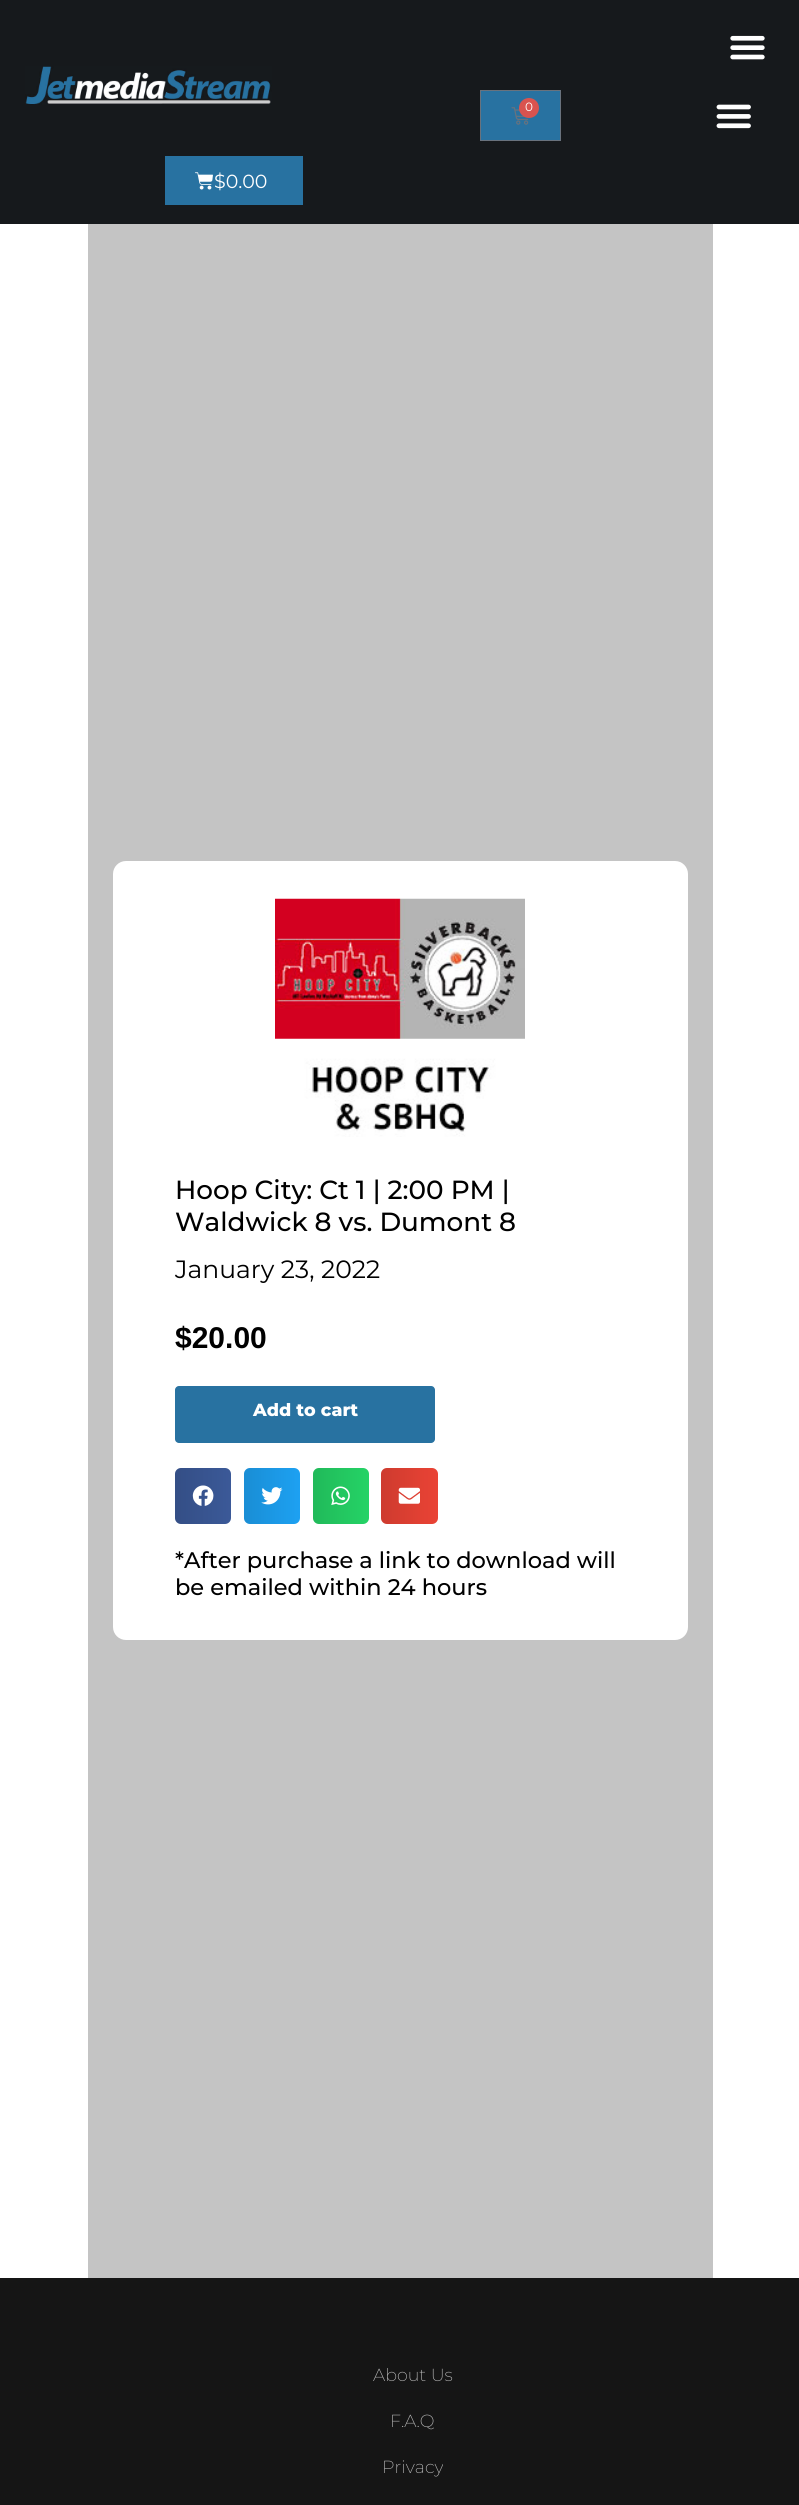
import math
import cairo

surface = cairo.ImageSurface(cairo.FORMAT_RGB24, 799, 2505)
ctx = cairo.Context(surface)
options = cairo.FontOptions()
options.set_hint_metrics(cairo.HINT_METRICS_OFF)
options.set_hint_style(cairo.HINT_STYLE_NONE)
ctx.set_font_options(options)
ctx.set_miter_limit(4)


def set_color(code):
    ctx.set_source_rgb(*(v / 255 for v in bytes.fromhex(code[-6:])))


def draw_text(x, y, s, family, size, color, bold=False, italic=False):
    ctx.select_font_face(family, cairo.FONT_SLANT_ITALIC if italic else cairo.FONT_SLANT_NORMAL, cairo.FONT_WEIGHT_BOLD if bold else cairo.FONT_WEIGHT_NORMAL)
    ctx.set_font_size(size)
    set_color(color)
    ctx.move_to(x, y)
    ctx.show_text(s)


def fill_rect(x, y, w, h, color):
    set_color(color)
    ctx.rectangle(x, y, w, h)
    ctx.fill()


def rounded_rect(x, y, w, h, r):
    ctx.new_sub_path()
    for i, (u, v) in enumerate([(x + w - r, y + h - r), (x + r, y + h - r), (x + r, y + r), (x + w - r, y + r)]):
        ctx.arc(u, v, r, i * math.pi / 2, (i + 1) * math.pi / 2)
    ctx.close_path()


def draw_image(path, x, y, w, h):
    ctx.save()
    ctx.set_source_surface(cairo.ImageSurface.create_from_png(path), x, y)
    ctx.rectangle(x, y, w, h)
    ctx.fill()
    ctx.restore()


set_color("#ffffff")
ctx.paint()
fill_rect(0, 0, 799, 224, "#16191c")
draw_image("assets/img1.png", 25, 66, 247, 39)
draw_image("assets/img2.png", 730, 35, 35, 25)
set_color("#2872a1")
ctx.rectangle(480.5, 90.5, 80, 50)
ctx.fill_preserve()
set_color("#69727d")
ctx.set_line_width(1)
ctx.stroke()
draw_image("assets/img3.png", 511, 107, 18, 18)
set_color("#d9534f")
ctx.arc(529, 108, 10, 0, 2 * math.pi)
ctx.fill()
draw_text(525, 111, "0", "Montserrat", 12, "#ffffff")
draw_image("assets/img4.png", 716, 104, 35, 25)
fill_rect(165, 156, 138, 49, "#2872a1")
draw_image("assets/img5.png", 195, 172, 18, 18)
draw_text(214, 188, "$0.00", "Montserrat", 19, "#ffffff")
fill_rect(88, 224, 625, 2054, "#c4c4c4")
set_color("#ffffff")
rounded_rect(113, 861, 575, 779, 13)
ctx.fill()
draw_image("assets/img6.png", 275, 898, 250, 239)
draw_text(175, 1199, "Hoop City: Ct 1 | 2:00 PM |", "Montserrat Medium", 26.25, "#000000")
draw_text(175, 1231, "Waldwick 8 vs. Dumont 8", "Montserrat Medium", 26.25, "#000000")
draw_text(175, 1278, "January 23, 2022", "Montserrat", 25, "#000000")
draw_text(175, 1348, "$20.00", "Liberation Sans", 30, "#000000", bold=True)
set_color("#2872a1")
rounded_rect(175, 1386, 260, 57, 4)
ctx.fill()
draw_text(253, 1416, "Add to cart", "Montserrat ExtraBold", 17.5, "#ffffff")
set_color("#3b5998")
rounded_rect(175, 1468, 56, 56, 6)
ctx.fill()
gradient = cairo.LinearGradient(175, 1496, 231, 1496)
gradient.add_color_stop_rgba(0, 0, 0, 0, 0.12)
gradient.add_color_stop_rgba(1, 0, 0, 0, 0)
ctx.set_source(gradient)
rounded_rect(175, 1468, 56, 56, 6)
ctx.fill()
draw_image("assets/img7.png", 192, 1485, 22, 21)
set_color("#1da1f2")
rounded_rect(244, 1468, 56, 56, 6)
ctx.fill()
gradient = cairo.LinearGradient(244, 1496, 300, 1496)
gradient.add_color_stop_rgba(0, 0, 0, 0, 0.12)
gradient.add_color_stop_rgba(1, 0, 0, 0, 0)
ctx.set_source(gradient)
rounded_rect(244, 1468, 56, 56, 6)
ctx.fill()
draw_image("assets/img8.png", 261, 1487, 22, 18)
set_color("#25d366")
rounded_rect(313, 1468, 56, 56, 6)
ctx.fill()
gradient = cairo.LinearGradient(313, 1496, 369, 1496)
gradient.add_color_stop_rgba(0, 0, 0, 0, 0.12)
gradient.add_color_stop_rgba(1, 0, 0, 0, 0)
ctx.set_source(gradient)
rounded_rect(313, 1468, 56, 56, 6)
ctx.fill()
draw_image("assets/img9.png", 331, 1486, 19, 19)
set_color("#ea4335")
rounded_rect(381, 1468, 57, 56, 6)
ctx.fill()
gradient = cairo.LinearGradient(381, 1496, 438, 1496)
gradient.add_color_stop_rgba(0, 0, 0, 0, 0.12)
gradient.add_color_stop_rgba(1, 0, 0, 0, 0)
ctx.set_source(gradient)
rounded_rect(381, 1468, 57, 56, 6)
ctx.fill()
draw_image("assets/img10.png", 398, 1487, 22, 17)
draw_text(175, 1568, "*After purchase a link to download will", "Montserrat Medium", 22.5, "#000000")
draw_text(175, 1595, "be emailed within 24 hours", "Montserrat Medium", 22.5, "#000000")
fill_rect(0, 2278, 799, 227, "#151515")
draw_text(373, 2381, "About Us", "Montserrat ExtraLight", 17.5, "#c4c4c4")
draw_text(390, 2427, "F.A.Q", "Montserrat ExtraLight", 17.5, "#c4c4c4")
draw_text(382, 2473, "Privacy", "Montserrat ExtraLight", 17.5, "#c4c4c4")
surface.write_to_png("output.png")
